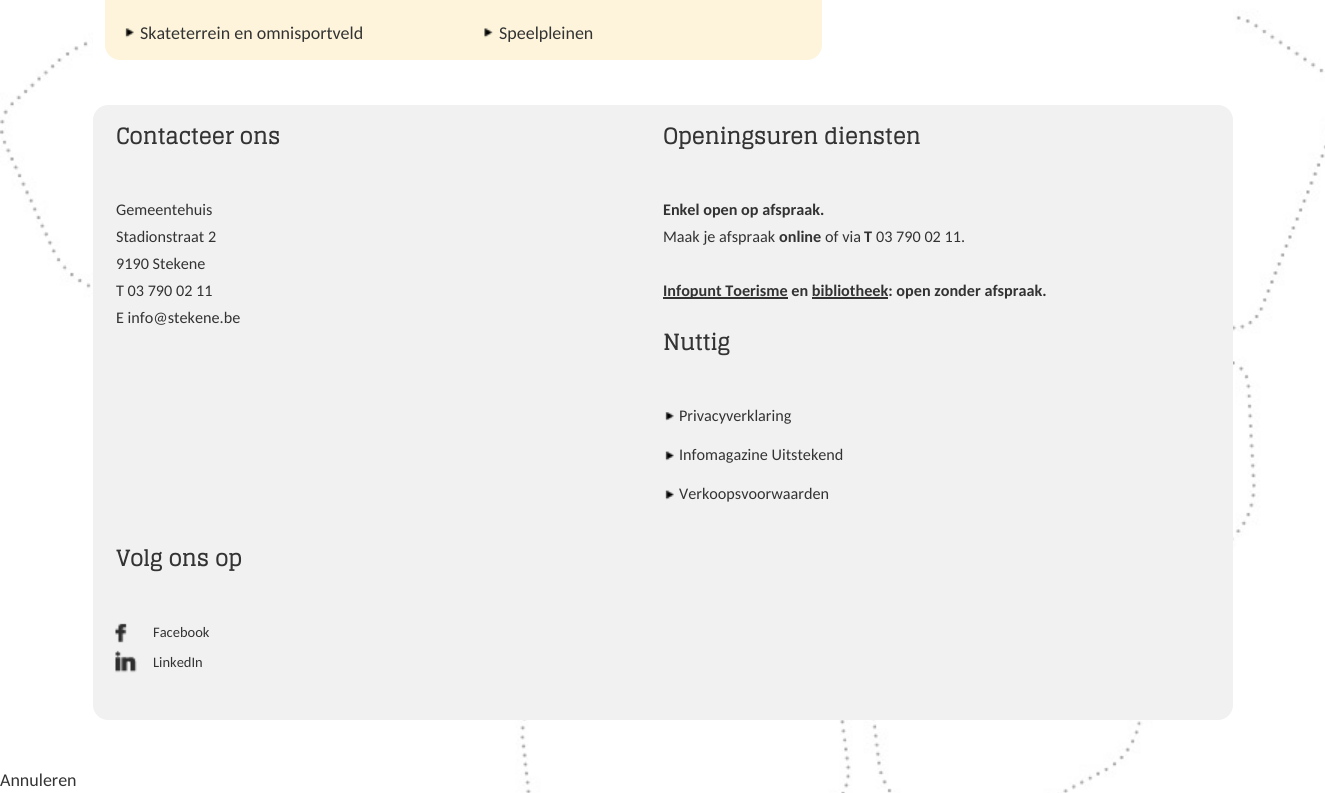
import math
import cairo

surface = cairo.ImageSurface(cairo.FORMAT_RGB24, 1325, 793)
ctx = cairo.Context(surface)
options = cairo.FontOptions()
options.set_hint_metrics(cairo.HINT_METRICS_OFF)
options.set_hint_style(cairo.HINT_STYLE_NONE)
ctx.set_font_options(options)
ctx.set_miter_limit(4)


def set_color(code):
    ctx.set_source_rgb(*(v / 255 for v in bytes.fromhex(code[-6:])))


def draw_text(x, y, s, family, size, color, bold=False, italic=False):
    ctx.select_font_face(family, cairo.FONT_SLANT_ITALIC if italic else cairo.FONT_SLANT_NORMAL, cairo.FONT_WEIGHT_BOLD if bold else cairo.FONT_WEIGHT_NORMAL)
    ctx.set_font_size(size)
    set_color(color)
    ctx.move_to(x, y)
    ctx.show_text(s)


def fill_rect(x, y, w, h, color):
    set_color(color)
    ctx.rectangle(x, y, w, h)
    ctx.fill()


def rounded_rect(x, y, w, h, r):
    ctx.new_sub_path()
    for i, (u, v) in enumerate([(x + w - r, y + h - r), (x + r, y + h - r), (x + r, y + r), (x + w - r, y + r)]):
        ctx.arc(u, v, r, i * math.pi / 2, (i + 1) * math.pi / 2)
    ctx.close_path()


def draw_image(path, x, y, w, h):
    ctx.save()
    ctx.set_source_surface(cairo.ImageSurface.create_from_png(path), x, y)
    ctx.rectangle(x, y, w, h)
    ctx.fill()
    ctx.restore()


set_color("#ffffff")
ctx.paint()
draw_image("assets/img1.png", 0, 0, 1325, 793)
fill_rect(93, 0, 1140, 105, "#ffffff")
set_color("#fdf4db")
rounded_rect(105, -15, 717, 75, 15)
ctx.fill()
draw_image("assets/img2.png", 125, 28, 9, 10)
draw_text(140, 39, "Skateterrein en omnisportveld", "Carlito", 18, "#333333")
draw_image("assets/img3.png", 484, 28, 9, 10)
draw_text(499, 39, "Speelpleinen", "Carlito", 18, "#333333")
set_color("#f1f1f1")
rounded_rect(93, 105, 1140, 615, 15)
ctx.fill()
draw_text(116, 144, "Contacteer ons", "Glegoo", 21.6, "#333333", bold=True)
draw_text(116, 215, "Gemeentehuis", "Carlito", 16.2, "#333333")
draw_text(116, 242, "Stadionstraat 2", "Carlito", 16.2, "#333333")
draw_text(116, 269, "9190 Stekene", "Carlito", 16.2, "#333333")
draw_text(116, 296, "T 03 790 02 11", "Carlito", 16.2, "#333333")
draw_text(116, 323, "E info@stekene.be", "Carlito", 16.2, "#333333")
draw_text(663, 144, "Openingsuren diensten", "Glegoo", 21.6, "#333333", bold=True)
draw_text(663, 215, "Enkel open op afspraak.", "Carlito", 16.2, "#333333", bold=True)
draw_text(663, 242, "Maak je afspraak", "Carlito", 16.2, "#333333")
draw_text(779, 242, "online", "Carlito", 16.2, "#333333", bold=True)
draw_text(825, 242, "of via", "Carlito", 16.2, "#333333")
draw_text(864, 242, "T", "Carlito", 16.2, "#333333", bold=True)
draw_text(876, 242, "03 790 02 11.", "Carlito", 16.2, "#333333")
fill_rect(663, 297, 125, 2, "#333333")
draw_text(663, 296, "Infopunt Toerisme en bibliotheek: open zonder afspraak.", "Carlito", 16.2, "#333333", bold=True)
fill_rect(812, 297, 76, 2, "#333333")
draw_text(663, 350, "Nuttig", "Glegoo", 21.6, "#333333", bold=True)
draw_image("assets/img4.png", 665, 412, 9, 9)
draw_text(679, 421, "Privacyverklaring", "Carlito", 16.2, "#333333")
draw_image("assets/img5.png", 665, 451, 9, 10)
draw_text(679, 460, "Infomagazine Uitstekend", "Carlito", 16.2, "#333333")
draw_image("assets/img5.png", 665, 490, 9, 10)
draw_text(679, 499, "Verkoopsvoorwaarden", "Carlito", 16.2, "#333333")
draw_text(116, 566, "Volg ons op", "Glegoo", 21.6, "#333333", bold=True)
draw_image("assets/img6.png", 115, 623, 12, 20)
draw_text(153, 637, "Facebook", "Carlito", 14.5, "#333333")
draw_image("assets/img7.png", 115, 650, 22, 23)
draw_text(153, 667, "LinkedIn", "Carlito", 14.5, "#333333")
draw_text(0, 786, "Annuleren", "Carlito", 18, "#333333")
surface.write_to_png("output.png")
